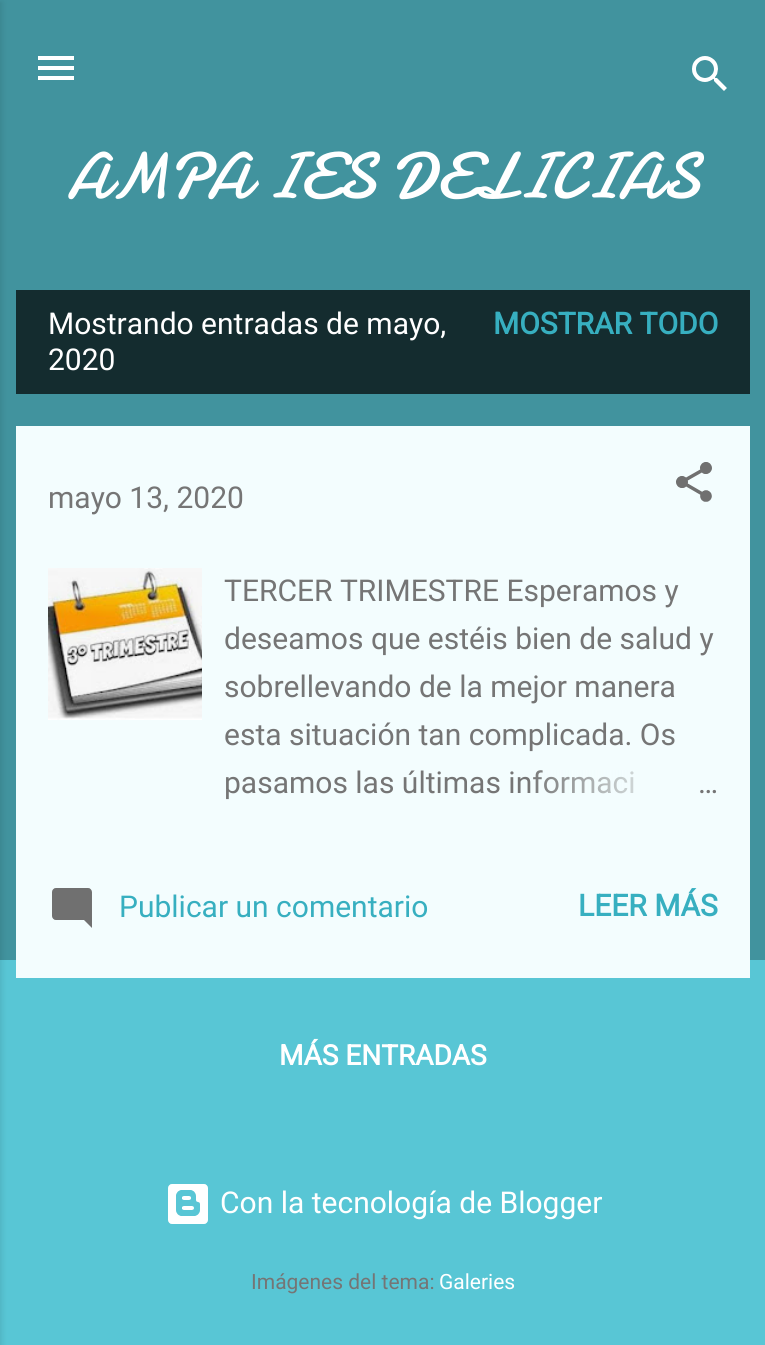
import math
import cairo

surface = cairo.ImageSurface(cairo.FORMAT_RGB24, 765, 1345)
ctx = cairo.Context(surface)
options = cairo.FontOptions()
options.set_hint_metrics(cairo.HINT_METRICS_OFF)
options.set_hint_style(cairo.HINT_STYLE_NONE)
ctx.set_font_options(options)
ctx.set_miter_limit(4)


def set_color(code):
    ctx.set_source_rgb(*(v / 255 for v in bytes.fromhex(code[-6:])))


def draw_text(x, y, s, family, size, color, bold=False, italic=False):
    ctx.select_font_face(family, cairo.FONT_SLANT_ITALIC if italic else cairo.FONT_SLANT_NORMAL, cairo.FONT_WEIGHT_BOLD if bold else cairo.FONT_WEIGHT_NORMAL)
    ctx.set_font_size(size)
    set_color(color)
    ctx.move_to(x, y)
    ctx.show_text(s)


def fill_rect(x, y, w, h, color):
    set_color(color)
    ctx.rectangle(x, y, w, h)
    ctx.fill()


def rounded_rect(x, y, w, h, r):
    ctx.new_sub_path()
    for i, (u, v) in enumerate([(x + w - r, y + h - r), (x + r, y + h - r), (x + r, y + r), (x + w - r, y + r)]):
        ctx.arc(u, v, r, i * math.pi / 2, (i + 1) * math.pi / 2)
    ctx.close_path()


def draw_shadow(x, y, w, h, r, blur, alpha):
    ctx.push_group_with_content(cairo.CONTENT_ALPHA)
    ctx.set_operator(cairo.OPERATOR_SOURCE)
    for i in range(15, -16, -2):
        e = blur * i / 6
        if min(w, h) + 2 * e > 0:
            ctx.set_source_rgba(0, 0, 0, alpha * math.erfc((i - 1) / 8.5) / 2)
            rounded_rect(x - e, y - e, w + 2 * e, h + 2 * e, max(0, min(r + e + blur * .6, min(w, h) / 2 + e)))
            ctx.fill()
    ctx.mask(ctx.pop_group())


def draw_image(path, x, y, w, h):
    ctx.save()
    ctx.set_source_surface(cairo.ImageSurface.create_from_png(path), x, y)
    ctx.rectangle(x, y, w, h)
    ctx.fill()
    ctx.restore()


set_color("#58c6d5")
ctx.paint()
fill_rect(0, 0, 765, 960, "#41939e")
set_color("#000000")
draw_shadow(-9, 2, 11, 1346, 0, 3, 0.1)
draw_image("assets/img1.png", 38, 56, 36, 24)
draw_image("assets/img2.png", 692, 56, 35, 35)
draw_text(67, 198, "AMPA IES DELICIAS", "Damion", 66.1, "#ffffff")
fill_rect(16, 290, 734, 104, "#142c2f")
draw_text(48, 334, "Mostrando entradas de mayo,", "Roboto", 30, "#ffffff")
draw_text(48, 370, "2020", "Roboto", 30, "#ffffff")
draw_text(493, 334, "MOSTRAR TODO", "Roboto", 30, "#37afc0", bold=True)
fill_rect(16, 426, 734, 552, "#f3fdfe")
draw_text(48, 508, "mayo 13, 2020", "Roboto", 30, "#757575")
draw_image("assets/img3.png", 676, 462, 36, 40)
draw_image("assets/img4.png", 48, 568, 154, 152)
draw_text(224, 601, "TERCER TRIMESTRE Esperamos y", "Roboto", 30, "#757575")
draw_text(224, 649, "deseamos que estéis bien de salud y", "Roboto", 30, "#757575")
draw_text(224, 697, "sobrellevando de la mejor manera", "Roboto", 30, "#757575")
draw_text(224, 745, "esta situación tan complicada. Os", "Roboto", 30, "#757575")
draw_text(224, 793, "pasamos las últimas informaci", "Roboto", 30, "#757575")
gradient = cairo.LinearGradient(718, 784, 526, 784)
gradient.add_color_stop_rgba(0, 0.953, 0.992, 0.996, 1)
gradient.add_color_stop_rgba(0.2, 0.953, 0.992, 0.996, 1)
gradient.add_color_stop_rgba(1, 0.953, 0.992, 0.996, 0)
ctx.set_source(gradient)
ctx.rectangle(529, 770, 105, 24)
ctx.fill()
draw_text(698, 793, "…", "Roboto", 30, "#757575")
draw_image("assets/img5.png", 52, 888, 40, 40)
draw_text(119, 917, "Publicar un comentario", "Roboto", 30, "#37afc0")
draw_text(578, 916, "LEER MÁS", "Roboto", 30, "#37afc0", bold=True)
draw_text(279, 1065, "MÁS ENTRADAS", "Roboto", 28, "#ffffff", bold=True)
draw_image("assets/img6.png", 168, 1184, 40, 40)
draw_text(220, 1213, "Con la tecnología de Blogger", "Roboto", 30, "#ffffff")
draw_text(251, 1289, "Imágenes del tema:", "Roboto", 21, "#757575")
draw_text(439, 1289, "Galeries", "Roboto", 21, "#ffffff")
surface.write_to_png("output.png")
